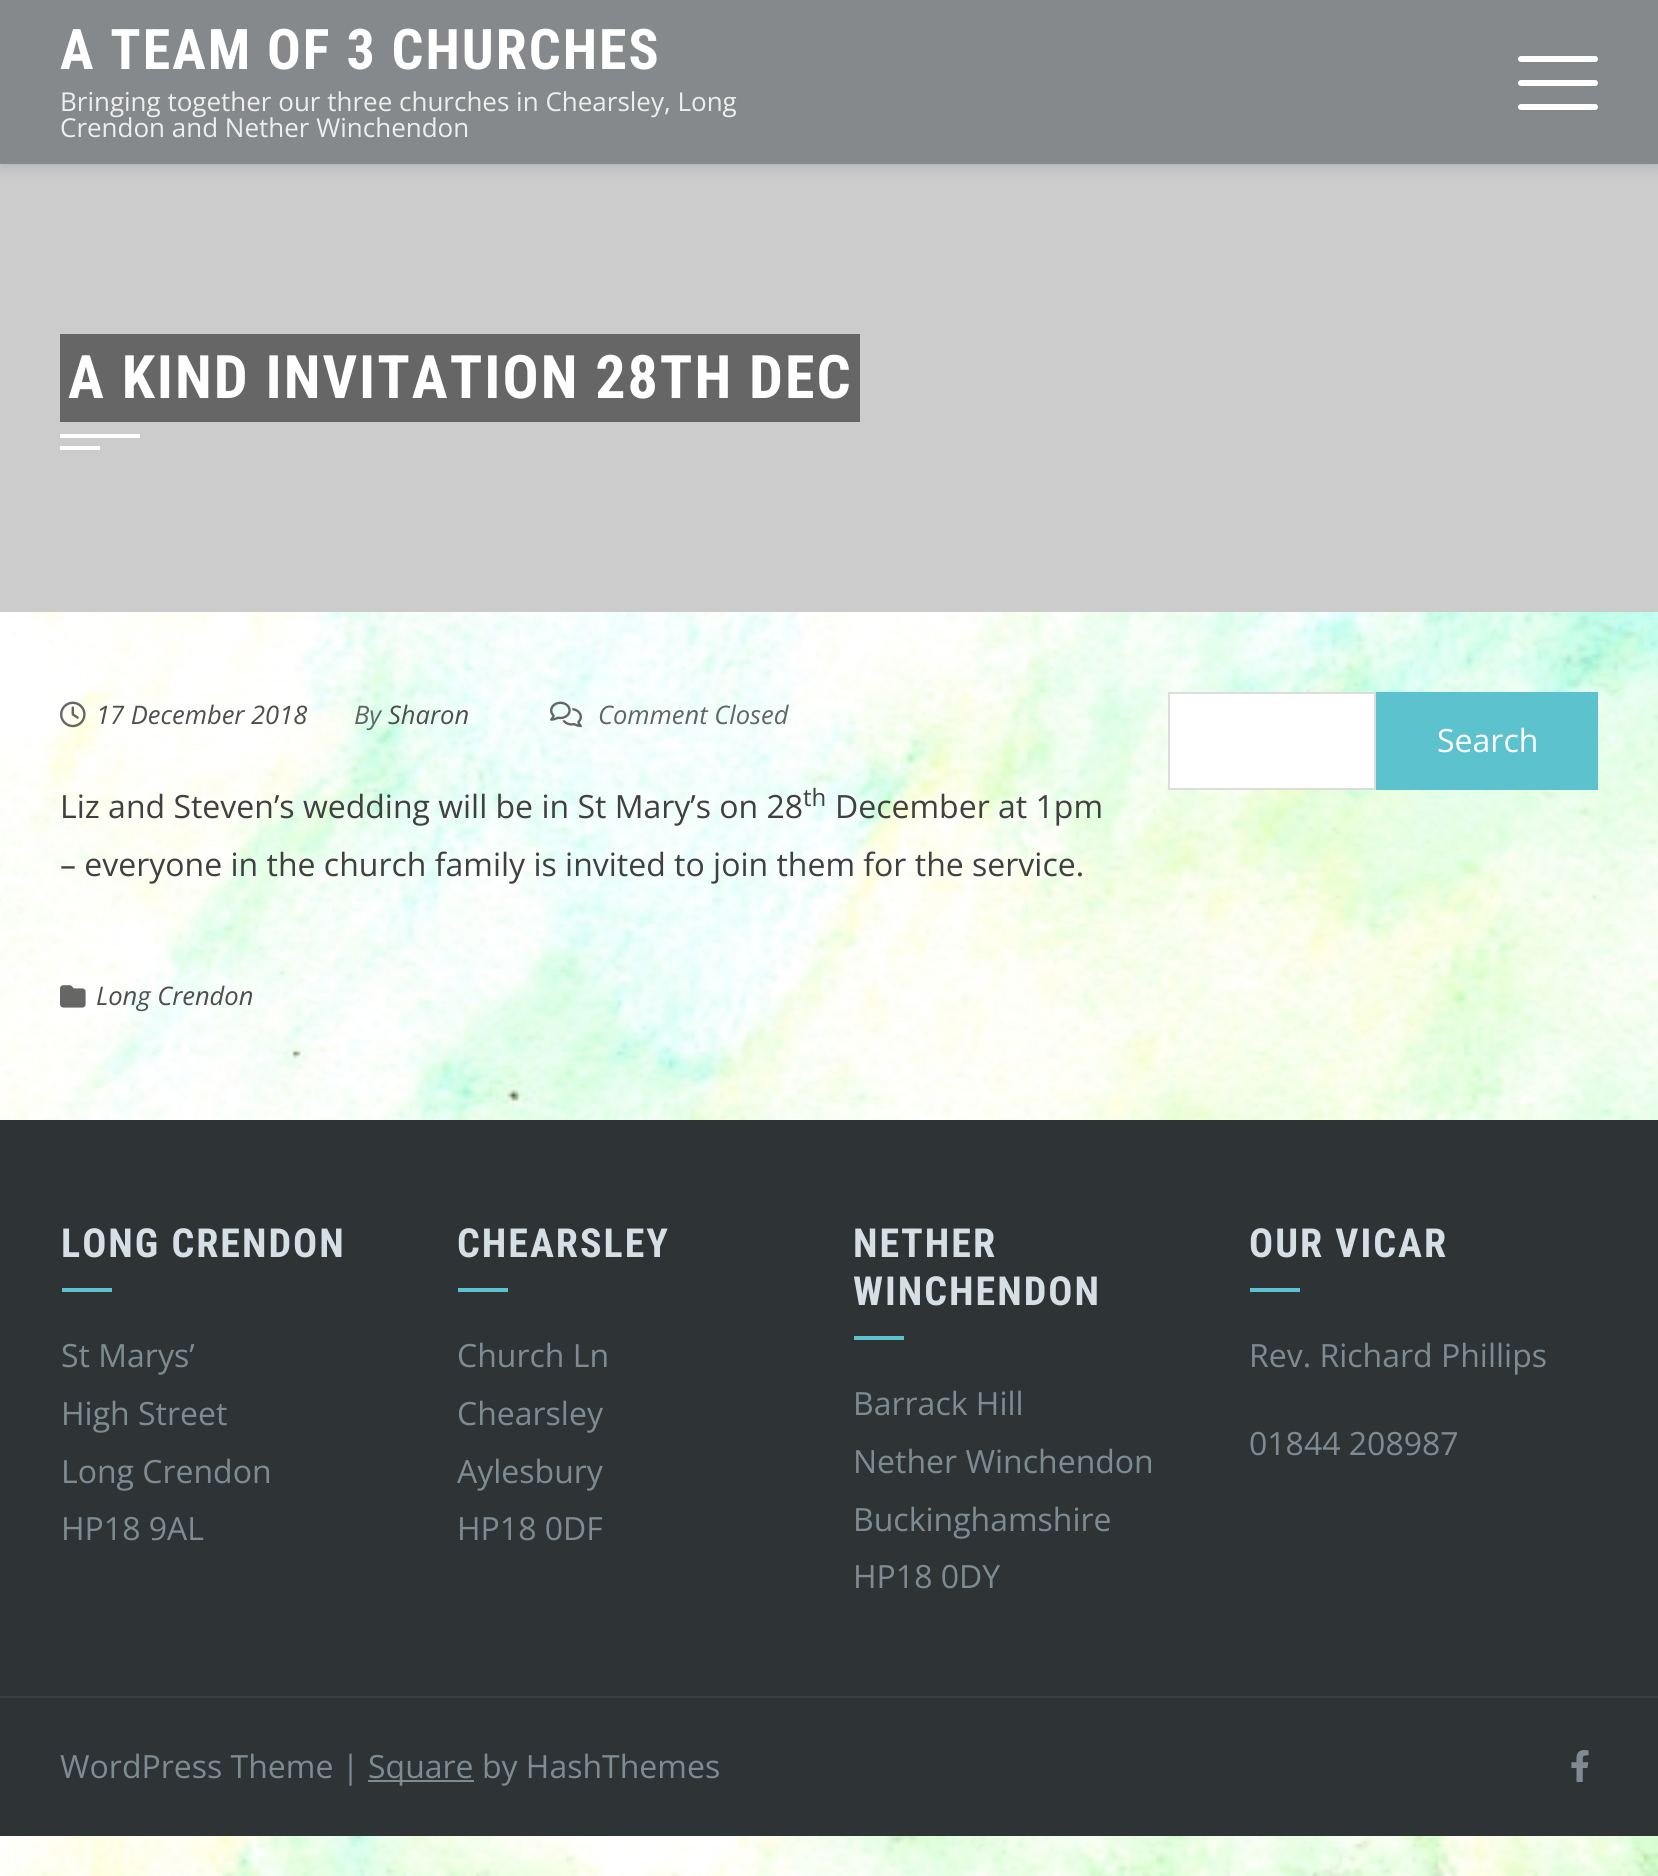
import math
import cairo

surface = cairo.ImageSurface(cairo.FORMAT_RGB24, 1658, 1876)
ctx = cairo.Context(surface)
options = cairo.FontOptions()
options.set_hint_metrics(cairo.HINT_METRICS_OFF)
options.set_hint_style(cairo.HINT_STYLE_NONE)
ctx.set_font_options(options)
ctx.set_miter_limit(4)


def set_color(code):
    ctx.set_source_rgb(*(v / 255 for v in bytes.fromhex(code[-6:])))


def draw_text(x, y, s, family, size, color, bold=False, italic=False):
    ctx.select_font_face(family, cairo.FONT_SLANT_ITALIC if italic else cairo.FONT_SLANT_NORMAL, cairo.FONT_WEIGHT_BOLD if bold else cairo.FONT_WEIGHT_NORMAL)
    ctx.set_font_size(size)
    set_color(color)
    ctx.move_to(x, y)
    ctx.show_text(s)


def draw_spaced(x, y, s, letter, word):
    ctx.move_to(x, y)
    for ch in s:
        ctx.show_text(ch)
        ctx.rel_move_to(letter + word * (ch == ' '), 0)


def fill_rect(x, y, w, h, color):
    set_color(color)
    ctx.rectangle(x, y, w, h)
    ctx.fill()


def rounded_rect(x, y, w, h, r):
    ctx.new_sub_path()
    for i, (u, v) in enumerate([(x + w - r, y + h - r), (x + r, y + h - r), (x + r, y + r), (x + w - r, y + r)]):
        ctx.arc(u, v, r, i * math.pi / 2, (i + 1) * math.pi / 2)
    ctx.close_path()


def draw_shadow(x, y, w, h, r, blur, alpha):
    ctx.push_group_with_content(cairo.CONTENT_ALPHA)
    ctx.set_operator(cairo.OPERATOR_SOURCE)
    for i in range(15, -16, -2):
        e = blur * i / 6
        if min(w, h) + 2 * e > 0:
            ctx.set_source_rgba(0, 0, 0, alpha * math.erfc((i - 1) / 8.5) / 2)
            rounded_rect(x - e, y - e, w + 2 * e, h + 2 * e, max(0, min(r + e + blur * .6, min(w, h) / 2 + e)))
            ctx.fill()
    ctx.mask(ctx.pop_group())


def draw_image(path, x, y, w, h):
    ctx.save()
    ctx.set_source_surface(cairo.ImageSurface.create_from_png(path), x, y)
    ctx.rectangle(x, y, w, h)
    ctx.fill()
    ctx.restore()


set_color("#ffffff")
ctx.paint()
draw_image("assets/img1.png", 0, 612, 1658, 1264)
fill_rect(0, 164, 1658, 448, "#cccccc")
set_color("#000000")
draw_shadow(0, 0, 1658, 164, 0, 8, 0.2)
fill_rect(0, 0, 1658, 164, "#86898b")
ctx.select_font_face("Roboto Condensed", cairo.FONT_SLANT_NORMAL, cairo.FONT_WEIGHT_BOLD)
ctx.set_font_size(56)
set_color("#ffffff")
draw_spaced(60, 69, "A TEAM OF 3 CHURCHES", 2, 0)
draw_text(60, 111, "Bringing together our three churches in Chearsley, Long", "Open Sans", 26, "#eeeeee")
draw_text(60, 137, "Crendon and Nether Winchendon", "Open Sans", 26, "#eeeeee")
set_color("#ffffff")
rounded_rect(1518, 80, 80, 6, 3)
ctx.fill()
rounded_rect(1518, 56, 80, 6, 3)
ctx.fill()
rounded_rect(1518, 104, 80, 6, 3)
ctx.fill()
fill_rect(60, 334, 800, 88, "#666666")
ctx.select_font_face("Roboto Condensed", cairo.FONT_SLANT_NORMAL, cairo.FONT_WEIGHT_BOLD)
ctx.set_font_size(60)
set_color("#ffffff")
draw_spaced(68, 398, "A KIND INVITATION 28TH DEC", 2, 0)
fill_rect(60, 434, 80, 4, "#ffffff")
fill_rect(60, 446, 40, 4, "#ffffff")
draw_image("assets/img2.png", 60, 701, 26, 27)
draw_text(96, 724, "17 December 2018", "Open Sans", 25.5, "#4e4e4e", italic=True)
draw_text(354, 724, "By", "Open Sans", 25.5, "#606663", italic=True)
draw_text(388, 724, "Sharon", "Open Sans", 25.5, "#4e4e4e", italic=True)
draw_image("assets/img3.png", 550, 701, 32, 27)
draw_text(598, 724, "Comment Closed", "Open Sans", 25.5, "#606663", italic=True)
draw_text(60, 818, "Liz and Steven’s wedding will be in St Mary’s on 28", "Open Sans", 32, "#404040")
draw_text(803, 806, "th", "Open Sans", 24, "#404040")
draw_text(835, 818, "December at 1pm", "Open Sans", 32, "#404040")
draw_text(60, 876, "– everyone in the church family is invited to join them for the service.", "Open Sans", 32, "#404040")
draw_image("assets/img4.png", 60, 985, 26, 23)
draw_text(96, 1005, "Long Crendon", "Open Sans", 25.5, "#4e4e4e", italic=True)
set_color("#ffffff")
ctx.rectangle(1169, 693, 206, 96)
ctx.fill_preserve()
set_color("#dddddd")
ctx.stroke()
fill_rect(1376, 692, 222, 98, "#5bc2ce")
draw_text(1437, 752, "Search", "Open Sans", 32, "#ffffff")
fill_rect(0, 1120, 1658, 716, "#2e3336")
fill_rect(0, 1696, 1658, 2, "#393f42")
ctx.select_font_face("Roboto Condensed", cairo.FONT_SLANT_NORMAL, cairo.FONT_WEIGHT_BOLD)
ctx.set_font_size(40)
set_color("#d5dfe5")
draw_spaced(61, 1257, "LONG CRENDON", 2, 0)
fill_rect(62, 1288, 50, 4, "#5bc2ce")
draw_text(61, 1367, "St Marys’", "Open Sans", 32, "#7e8b93")
draw_text(61, 1425, "High Street", "Open Sans", 32, "#7e8b93")
draw_text(61, 1483, "Long Crendon", "Open Sans", 32, "#7e8b93")
draw_text(61, 1540, "HP18 9AL", "Open Sans", 32, "#7e8b93")
ctx.select_font_face("Roboto Condensed", cairo.FONT_SLANT_NORMAL, cairo.FONT_WEIGHT_BOLD)
ctx.set_font_size(40)
set_color("#d5dfe5")
draw_spaced(457, 1257, "CHEARSLEY", 2, 0)
fill_rect(458, 1288, 50, 4, "#5bc2ce")
draw_text(457, 1367, "Church Ln", "Open Sans", 32, "#7e8b93")
draw_text(457, 1425, "Chearsley", "Open Sans", 32, "#7e8b93")
draw_text(457, 1483, "Aylesbury", "Open Sans", 32, "#7e8b93")
draw_text(457, 1540, "HP18 0DF", "Open Sans", 32, "#7e8b93")
ctx.select_font_face("Roboto Condensed", cairo.FONT_SLANT_NORMAL, cairo.FONT_WEIGHT_BOLD)
ctx.set_font_size(40)
set_color("#d5dfe5")
draw_spaced(853, 1257, "NETHER", 2, 0)
draw_spaced(853, 1305, "WINCHENDON", 2, 0)
fill_rect(854, 1336, 50, 4, "#5bc2ce")
draw_text(853, 1415, "Barrack Hill", "Open Sans", 32, "#7e8b93")
draw_text(853, 1473, "Nether Winchendon", "Open Sans", 32, "#7e8b93")
draw_text(853, 1531, "Buckinghamshire", "Open Sans", 32, "#7e8b93")
draw_text(853, 1588, "HP18 0DY", "Open Sans", 32, "#7e8b93")
ctx.select_font_face("Roboto Condensed", cairo.FONT_SLANT_NORMAL, cairo.FONT_WEIGHT_BOLD)
ctx.set_font_size(40)
set_color("#d5dfe5")
draw_spaced(1249, 1257, "OUR VICAR", 2, 0)
fill_rect(1250, 1288, 50, 4, "#5bc2ce")
draw_text(1249, 1367, "Rev. Richard Phillips", "Open Sans", 32, "#7e8b93")
draw_text(1249, 1455, "01844 208987", "Open Sans", 32, "#7e8b93")
draw_text(60, 1778, "WordPress Theme |", "Open Sans", 32, "#7e8b93")
fill_rect(368, 1780, 106, 2, "#7e8b93")
draw_text(368, 1778, "Square by HashThemes", "Open Sans", 32, "#7e8b93")
draw_image("assets/img5.png", 1571, 1750, 18, 32)
surface.write_to_png("output.png")
